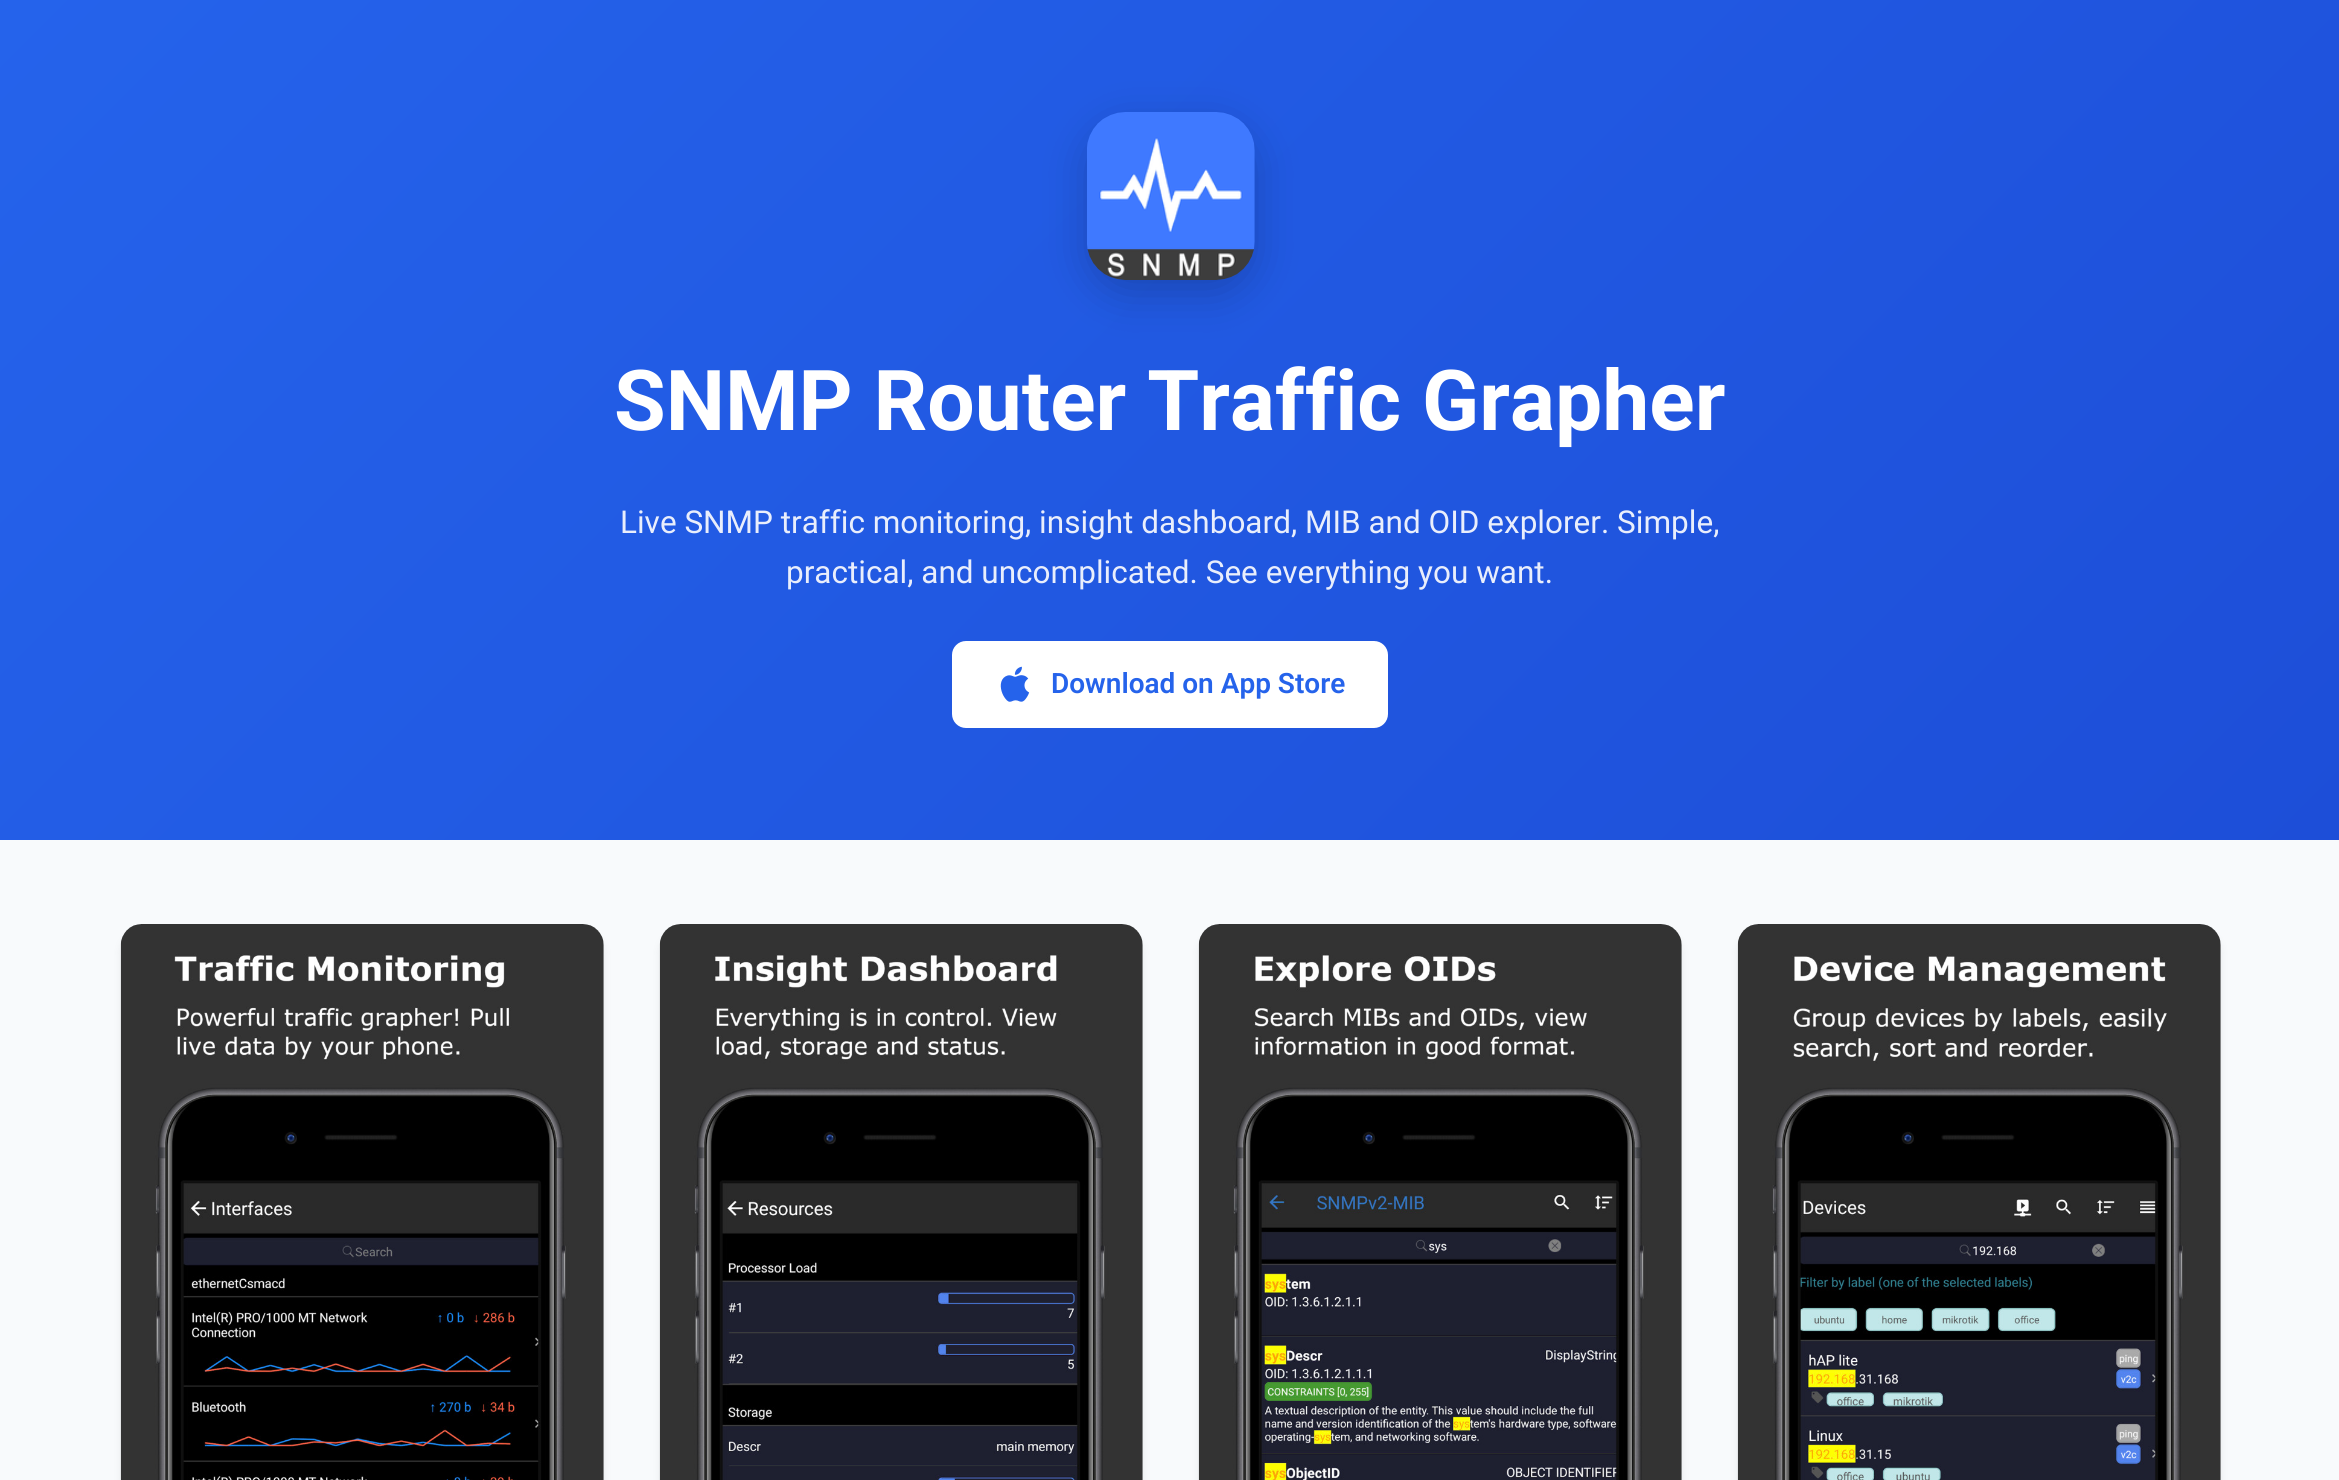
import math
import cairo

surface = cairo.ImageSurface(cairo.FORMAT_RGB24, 2339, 1480)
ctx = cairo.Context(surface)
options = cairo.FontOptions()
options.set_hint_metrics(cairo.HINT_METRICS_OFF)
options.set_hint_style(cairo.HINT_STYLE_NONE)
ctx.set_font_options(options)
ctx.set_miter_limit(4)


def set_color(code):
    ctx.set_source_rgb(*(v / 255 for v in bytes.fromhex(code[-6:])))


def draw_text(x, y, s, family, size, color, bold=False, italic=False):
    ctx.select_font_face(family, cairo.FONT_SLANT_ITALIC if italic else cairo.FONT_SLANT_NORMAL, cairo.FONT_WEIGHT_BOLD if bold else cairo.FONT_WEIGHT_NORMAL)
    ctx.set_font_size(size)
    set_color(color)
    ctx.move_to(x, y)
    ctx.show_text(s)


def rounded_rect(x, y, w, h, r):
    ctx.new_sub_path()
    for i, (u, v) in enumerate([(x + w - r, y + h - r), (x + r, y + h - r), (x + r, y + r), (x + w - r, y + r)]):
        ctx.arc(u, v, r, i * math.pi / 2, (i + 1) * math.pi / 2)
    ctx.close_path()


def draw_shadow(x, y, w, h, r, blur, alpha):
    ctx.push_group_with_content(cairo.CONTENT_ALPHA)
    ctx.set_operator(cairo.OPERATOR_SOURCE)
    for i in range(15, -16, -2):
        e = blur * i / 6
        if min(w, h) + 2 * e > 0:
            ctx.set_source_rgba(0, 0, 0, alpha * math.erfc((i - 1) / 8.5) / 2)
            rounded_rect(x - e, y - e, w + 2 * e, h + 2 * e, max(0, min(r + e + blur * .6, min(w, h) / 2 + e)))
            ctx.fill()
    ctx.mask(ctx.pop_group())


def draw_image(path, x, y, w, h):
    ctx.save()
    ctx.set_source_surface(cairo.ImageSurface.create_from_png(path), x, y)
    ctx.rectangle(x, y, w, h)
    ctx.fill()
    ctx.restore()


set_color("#f8fafc")
ctx.paint()
gradient = cairo.LinearGradient(375, -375, 1965, 1215)
gradient.add_color_stop_rgba(0, 0.145, 0.388, 0.922, 1)
gradient.add_color_stop_rgba(1, 0.114, 0.306, 0.847, 1)
ctx.set_source(gradient)
ctx.rectangle(0, 0, 2339, 840)
ctx.fill()
set_color("#000000")
draw_shadow(1087, 126, 168, 168, 39, 21, 0.2)
draw_image("assets/img1.png", 1087, 112, 168, 168)
draw_text(614, 430, "SNMP Router Traffic Grapher", "Roboto", 84, "#ffffff", bold=True)
draw_text(620, 533, "Live SNMP traffic monitoring, insight dashboard, MIB and OID explorer. Simple,", "Roboto", 31.5, "#e9eefc")
draw_text(786, 583, "practical, and uncomplicated. See everything you want.", "Roboto", 31.5, "#e9eefc")
set_color("#ffffff")
rounded_rect(952, 641, 436, 87, 14)
ctx.fill()
draw_image("assets/img2.png", 1000, 666, 30, 36)
draw_text(1051, 693, "Download on App Store", "Roboto SemiBold", 28, "#2563eb")
set_color("#000000")
draw_shadow(123, 933, 479, 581, 19, 5, 0.1)
draw_image("assets/img3.png", 120, 924, 484, 556)
draw_shadow(662, 933, 479, 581, 19, 5, 0.1)
draw_image("assets/img4.png", 659, 924, 484, 556)
draw_shadow(1201, 933, 479, 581, 19, 5, 0.1)
draw_image("assets/img5.png", 1198, 924, 484, 556)
draw_shadow(1740, 933, 479, 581, 19, 5, 0.1)
draw_image("assets/img6.png", 1737, 924, 484, 556)
surface.write_to_png("output.png")
